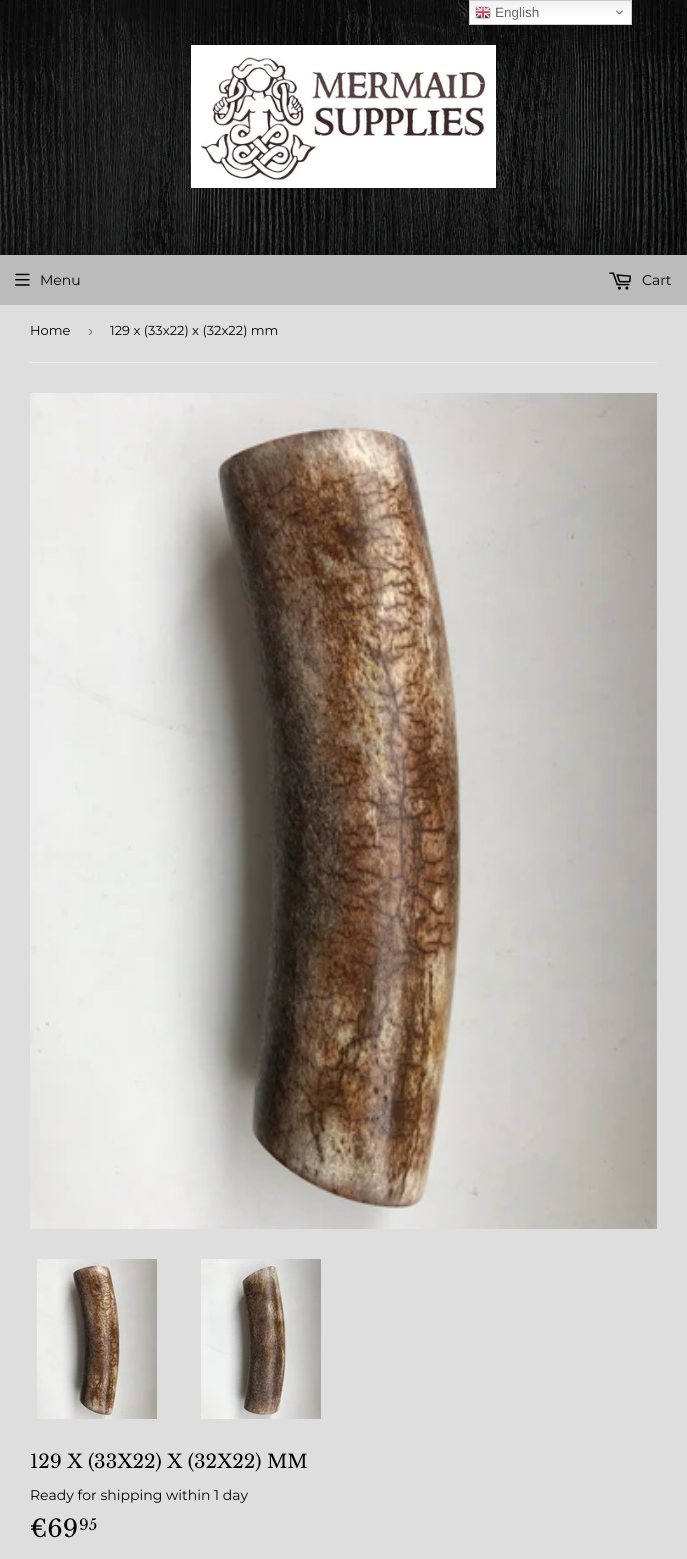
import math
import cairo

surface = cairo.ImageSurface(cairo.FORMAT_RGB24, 687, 1559)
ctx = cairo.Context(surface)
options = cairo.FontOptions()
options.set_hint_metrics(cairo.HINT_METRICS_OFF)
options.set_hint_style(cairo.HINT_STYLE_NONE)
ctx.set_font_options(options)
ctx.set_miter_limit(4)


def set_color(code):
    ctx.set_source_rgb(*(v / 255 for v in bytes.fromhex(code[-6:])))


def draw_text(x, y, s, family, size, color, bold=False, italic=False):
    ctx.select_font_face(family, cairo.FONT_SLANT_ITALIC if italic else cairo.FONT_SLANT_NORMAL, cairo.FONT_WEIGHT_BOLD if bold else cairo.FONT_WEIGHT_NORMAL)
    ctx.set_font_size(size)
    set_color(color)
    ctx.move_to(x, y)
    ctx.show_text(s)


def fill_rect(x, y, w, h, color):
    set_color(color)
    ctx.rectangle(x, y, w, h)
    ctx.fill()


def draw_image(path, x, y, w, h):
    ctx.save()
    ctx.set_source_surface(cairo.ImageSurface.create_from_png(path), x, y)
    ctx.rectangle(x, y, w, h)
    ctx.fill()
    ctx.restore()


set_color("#dedede")
ctx.paint()
draw_image("assets/img3.png", 0, 0, 687, 255)
gradient = cairo.LinearGradient(551, 0, 551, 25)
gradient.add_color_stop_rgba(0, 0.937, 0.937, 0.937, 1)
gradient.add_color_stop_rgba(0.7, 1, 1, 1, 1)
ctx.set_source(gradient)
ctx.rectangle(470, 1, 161, 23)
ctx.fill()
ctx.rectangle(469.5, 0.5, 162, 24)
set_color("#cccccc")
ctx.set_line_width(1)
ctx.stroke()
draw_image("assets/img1.png", 475, 6, 16, 14)
draw_text(495, 17, "English", "Liberation Sans", 13.5, "#666666")
draw_image("assets/img2.png", 616, 10, 7, 5)
draw_image("assets/img4.png", 191, 45, 305, 143)
fill_rect(0, 255, 687, 50, "#bbbbbb")
draw_image("assets/img5.png", 15, 273, 15, 13)
draw_text(40, 285, "Menu", "Montserrat", 14, "#000000")
draw_image("assets/img6.png", 609, 272, 23, 18)
draw_text(642, 285, "Cart", "Montserrat", 14, "#000000")
fill_rect(30, 362, 627, 1, "#ececec")
draw_text(30, 335, "Home", "Montserrat", 13, "#000000")
draw_text(88, 336, "›", "Liberation Sans", 15, "#767676")
draw_text(110, 335, "129 x (33x22) x (32x22) mm", "Montserrat", 13, "#000000")
draw_image("assets/img7.png", 30, 393, 627, 836)
draw_image("assets/img8.png", 37, 1259, 120, 160)
draw_image("assets/img9.png", 201, 1259, 120, 160)
draw_text(30, 1468, "129 X (33X22) X (32X22) MM", "Libre Baskerville", 18.7, "#000000")
draw_text(30, 1500, "Ready for shipping within 1 day", "Montserrat", 14, "#000000")
draw_text(30, 1537, "€69", "Libre Baskerville", 24, "#000000")
draw_text(79, 1530, "95", "Libre Baskerville", 15, "#000000")
surface.write_to_png("output.png")
